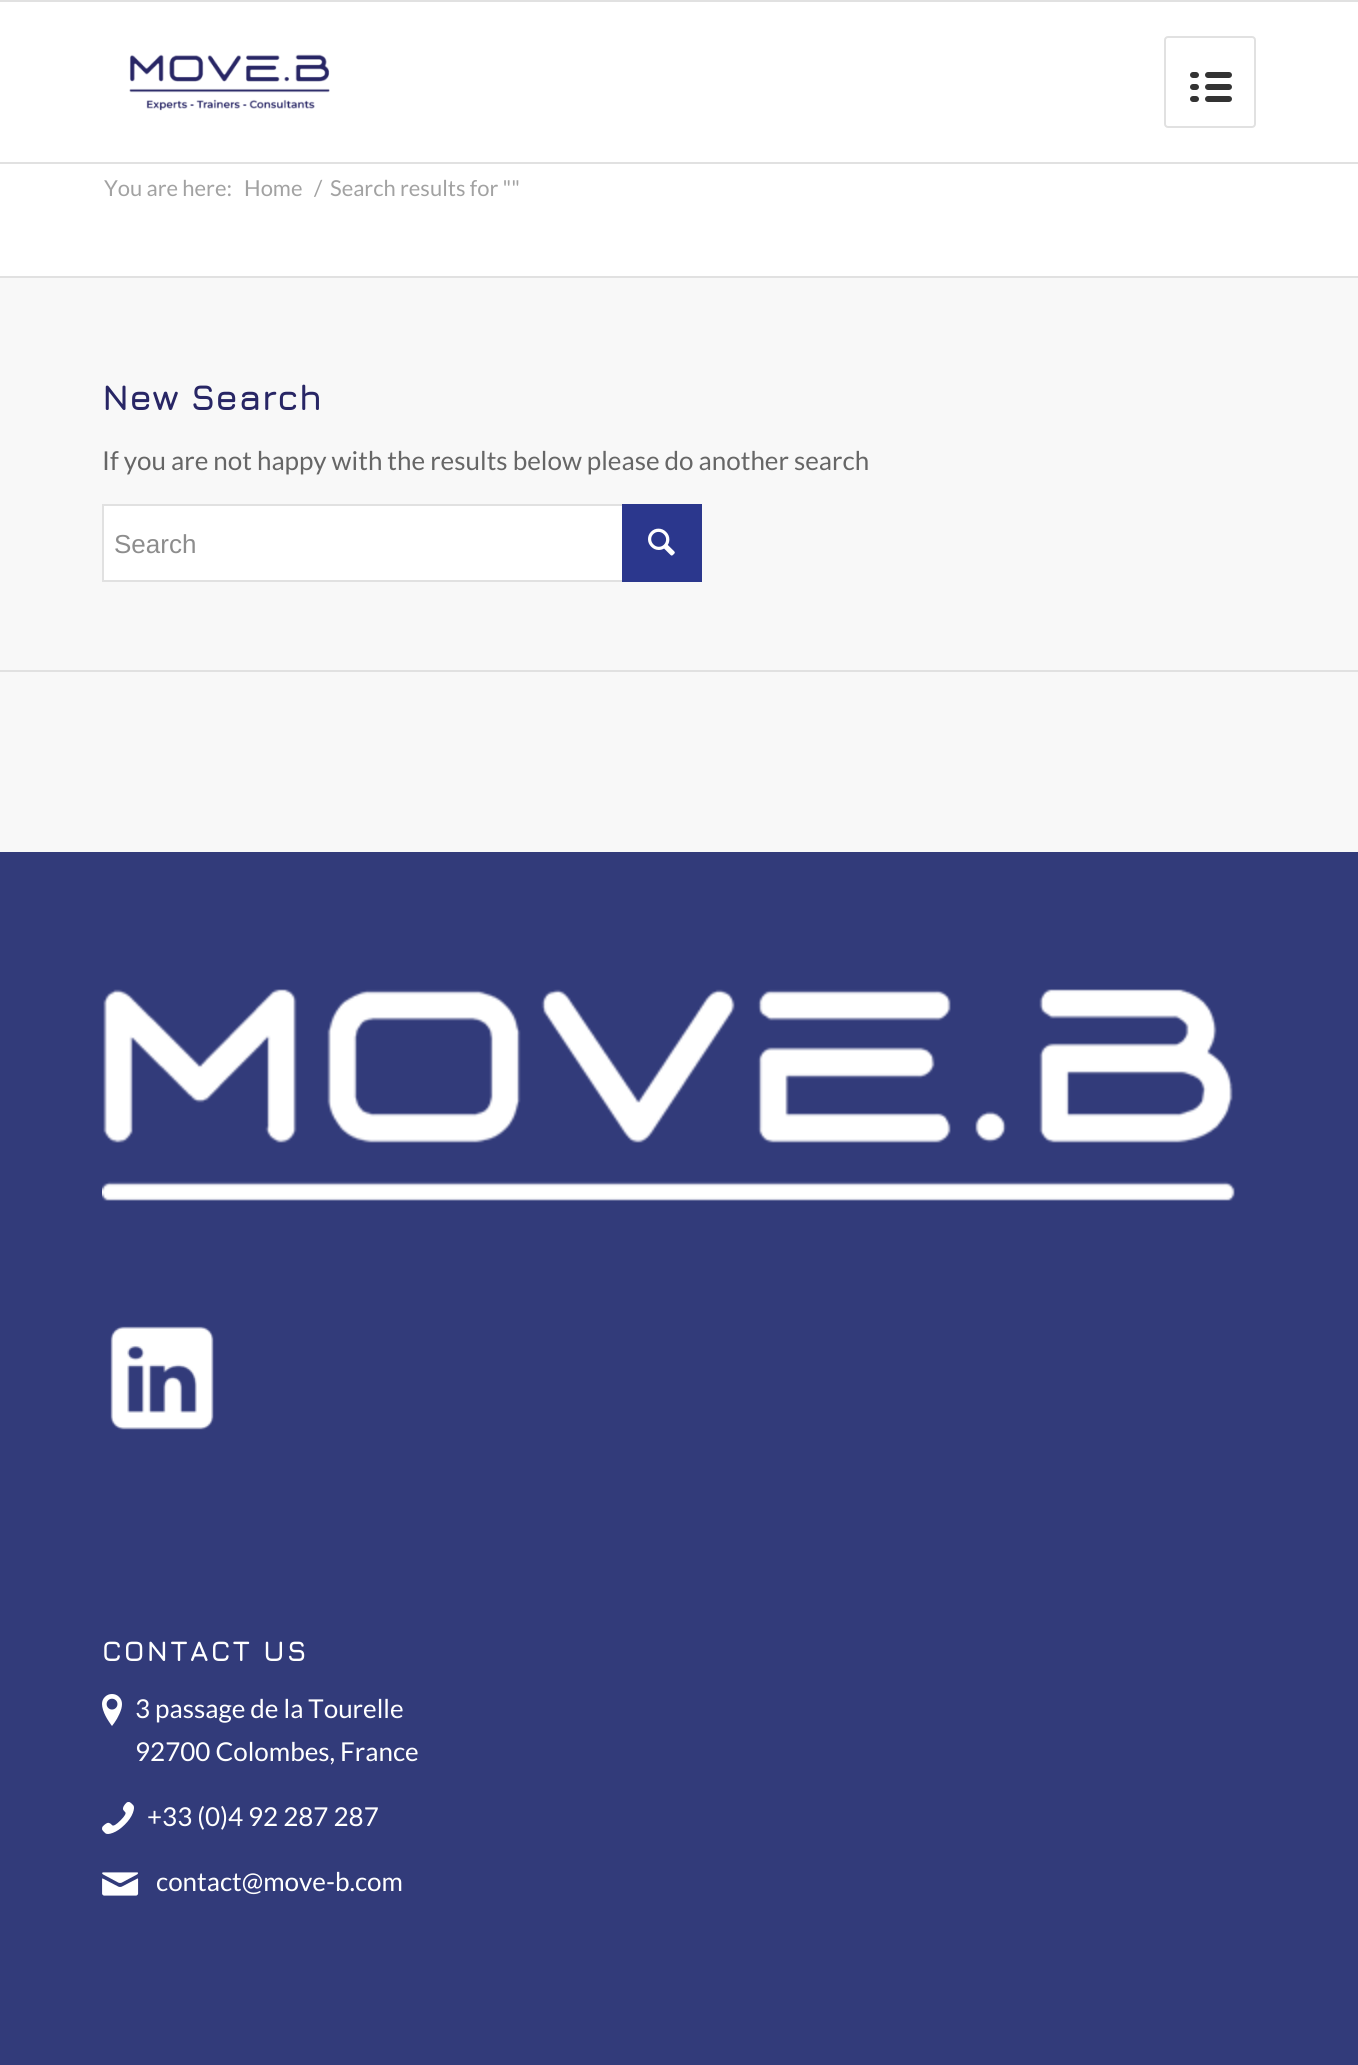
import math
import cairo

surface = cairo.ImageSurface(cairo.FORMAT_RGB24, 1358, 2065)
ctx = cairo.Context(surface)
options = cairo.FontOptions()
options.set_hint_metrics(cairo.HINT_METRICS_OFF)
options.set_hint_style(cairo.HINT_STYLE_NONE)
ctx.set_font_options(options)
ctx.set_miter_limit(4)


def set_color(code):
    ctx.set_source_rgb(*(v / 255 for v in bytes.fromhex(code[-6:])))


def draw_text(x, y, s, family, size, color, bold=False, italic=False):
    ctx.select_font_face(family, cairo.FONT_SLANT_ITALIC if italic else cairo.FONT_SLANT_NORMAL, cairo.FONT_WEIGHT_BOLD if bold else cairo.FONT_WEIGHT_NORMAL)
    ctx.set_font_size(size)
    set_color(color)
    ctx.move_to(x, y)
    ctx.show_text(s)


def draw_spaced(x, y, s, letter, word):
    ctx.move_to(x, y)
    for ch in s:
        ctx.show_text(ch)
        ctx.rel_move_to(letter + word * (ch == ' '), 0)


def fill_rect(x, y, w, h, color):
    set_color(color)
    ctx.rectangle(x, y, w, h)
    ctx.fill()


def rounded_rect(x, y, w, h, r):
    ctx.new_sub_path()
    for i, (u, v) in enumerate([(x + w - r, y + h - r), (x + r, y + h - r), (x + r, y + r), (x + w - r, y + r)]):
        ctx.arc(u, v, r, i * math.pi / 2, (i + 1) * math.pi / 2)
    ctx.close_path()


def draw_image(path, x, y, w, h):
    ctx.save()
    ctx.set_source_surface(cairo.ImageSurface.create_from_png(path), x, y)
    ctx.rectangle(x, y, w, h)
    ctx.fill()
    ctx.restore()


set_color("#ffffff")
ctx.paint()
fill_rect(0, 0, 1358, 2, "#e1e1e1")
fill_rect(0, 162, 1358, 2, "#e1e1e1")
draw_image("assets/img1.png", 129, 54, 201, 57)
rounded_rect(1165, 37, 90, 90, 3)
ctx.stroke()
draw_image("assets/img2.png", 1190, 72, 42, 30)
draw_text(104, 196, "You are here:", "Lato", 22, "#a2a2a2")
draw_text(244, 196, "Home", "Lato", 22, "#a2a2a2")
draw_text(314, 196, "/", "Lato", 22, "#a2a2a2")
draw_text(330, 196, "Search results for \"\"", "Lato", 22, "#a2a2a2")
fill_rect(0, 278, 1358, 574, "#f8f8f8")
fill_rect(0, 276, 1358, 2, "#e1e1e1")
draw_text(102, 410, "New Search", "Jura", 36, "#282665", bold=True)
draw_text(102, 470, "If you are not happy with the results below please do another search", "Lato", 26, "#666666")
fill_rect(104, 506, 518, 74, "#ffffff")
ctx.rectangle(103, 505, 598, 76)
set_color("#e1e1e1")
ctx.stroke()
draw_text(114, 553, "Search", "Liberation Sans", 26, "#8d8d8d")
fill_rect(622, 504, 80, 78, "#2b378d")
draw_image("assets/img3.png", 648, 528, 27, 28)
fill_rect(0, 670, 1358, 2, "#e1e1e1")
fill_rect(0, 852, 1358, 1213, "#323b7a")
draw_image("assets/img4.png", 102, 989, 1133, 212)
draw_image("assets/img5.png", 110, 1326, 104, 104)
ctx.select_font_face("Jura", cairo.FONT_SLANT_NORMAL, cairo.FONT_WEIGHT_BOLD)
ctx.set_font_size(28.5)
set_color("#ffffff")
draw_spaced(102, 1661, "CONTACT US", 2, 0)
draw_image("assets/img6.png", 102, 1694, 20, 32)
draw_text(135, 1718, "3 passage de la Tourelle", "Lato", 26, "#ffffff")
draw_text(135, 1761, "92700 Colombes, France", "Lato", 26, "#ffffff")
draw_image("assets/img7.png", 102, 1802, 32, 32)
draw_text(147, 1826, "+33 (0)4 92 287 287", "Lato", 26, "#ffffff")
draw_image("assets/img8.png", 102, 1872, 37, 24)
draw_text(156, 1891, "contact@move-b.com", "Lato", 26, "#ffffff")
surface.write_to_png("output.png")
